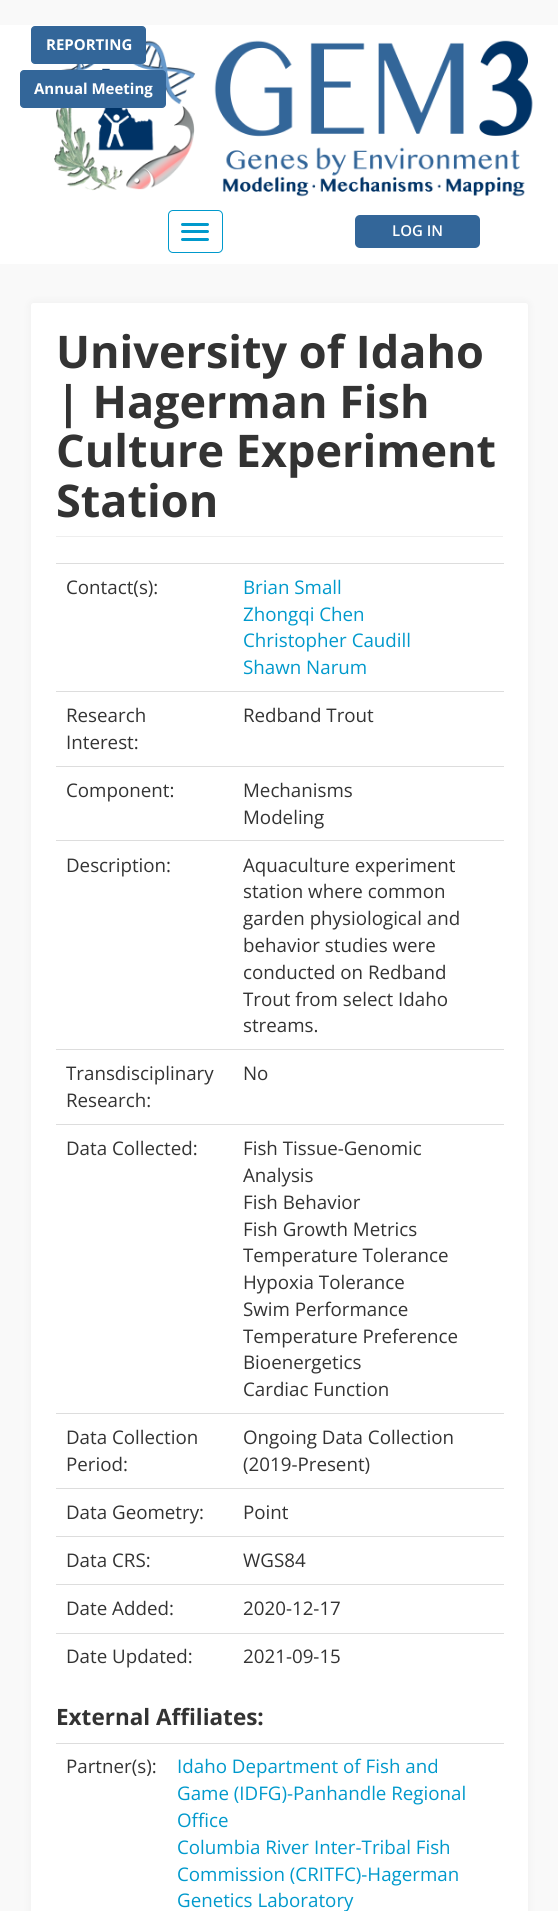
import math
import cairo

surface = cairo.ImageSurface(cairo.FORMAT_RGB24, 558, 1911)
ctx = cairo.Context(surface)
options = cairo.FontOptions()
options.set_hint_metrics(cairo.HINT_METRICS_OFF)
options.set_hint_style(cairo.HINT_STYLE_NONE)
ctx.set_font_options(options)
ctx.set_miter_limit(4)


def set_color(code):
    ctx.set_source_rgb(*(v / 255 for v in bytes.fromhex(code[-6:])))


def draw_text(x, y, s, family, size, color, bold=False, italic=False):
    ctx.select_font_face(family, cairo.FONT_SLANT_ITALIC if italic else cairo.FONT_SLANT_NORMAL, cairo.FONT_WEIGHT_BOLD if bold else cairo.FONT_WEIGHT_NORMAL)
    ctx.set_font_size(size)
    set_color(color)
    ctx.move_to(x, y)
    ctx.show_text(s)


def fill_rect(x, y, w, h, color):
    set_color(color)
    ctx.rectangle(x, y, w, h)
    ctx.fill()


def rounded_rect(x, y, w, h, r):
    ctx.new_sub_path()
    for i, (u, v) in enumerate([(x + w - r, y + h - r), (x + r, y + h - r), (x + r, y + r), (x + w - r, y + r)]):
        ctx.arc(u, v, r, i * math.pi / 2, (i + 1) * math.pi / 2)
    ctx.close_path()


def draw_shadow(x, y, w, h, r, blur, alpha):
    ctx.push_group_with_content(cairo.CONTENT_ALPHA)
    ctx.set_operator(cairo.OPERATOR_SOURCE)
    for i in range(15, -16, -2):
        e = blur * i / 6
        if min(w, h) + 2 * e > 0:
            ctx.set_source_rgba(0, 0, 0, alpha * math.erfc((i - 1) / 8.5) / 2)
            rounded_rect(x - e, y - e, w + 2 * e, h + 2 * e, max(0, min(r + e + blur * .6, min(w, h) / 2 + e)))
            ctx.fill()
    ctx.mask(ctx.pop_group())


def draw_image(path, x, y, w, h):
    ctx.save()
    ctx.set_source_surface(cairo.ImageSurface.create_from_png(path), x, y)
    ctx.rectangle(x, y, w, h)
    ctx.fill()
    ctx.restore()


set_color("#f9f9f9")
ctx.paint()
fill_rect(0, 25, 558, 239, "#ffffff")
draw_image("assets/img1.png", 54, 40, 479, 157)
set_color("#336699")
rounded_rect(31.5, 26.5, 114, 37, 3.5)
ctx.fill_preserve()
ctx.set_line_width(1)
ctx.stroke()
draw_text(46, 50, "REPORTING", "Open Sans", 15, "#ffffff", bold=True)
set_color("#336699")
rounded_rect(20.5, 70.5, 145, 37, 3.5)
ctx.fill_preserve()
ctx.stroke()
draw_text(34, 94, "Annual Meeting", "Open Sans", 15, "#ffffff", bold=True)
set_color("#336699")
rounded_rect(355, 215, 125, 33, 5)
ctx.fill()
draw_text(392, 236, "LOG IN", "Open Sans SemiBold", 15, "#ffffff")
rounded_rect(168.5, 210.5, 54, 42, 4.5)
set_color("#0099cc")
ctx.stroke()
rounded_rect(181, 223, 28, 3, 1.5)
ctx.fill()
rounded_rect(181, 230, 28, 3, 1.5)
ctx.fill()
rounded_rect(181, 238, 28, 3, 1.5)
ctx.fill()
set_color("#000000")
draw_shadow(31, 303, 497, 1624, 2.5, 4.5, 0.05)
set_color("#ffffff")
rounded_rect(31, 303, 497, 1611, 2.5)
ctx.fill()
fill_rect(56, 536, 447, 1, "#eeeeee")
draw_text(56, 368, "University of Idaho", "Open Sans", 45, "#333333", bold=True)
draw_text(56, 418, "| Hagerman Fish", "Open Sans", 45, "#333333", bold=True)
draw_text(56, 467, "Culture Experiment", "Open Sans", 45, "#333333", bold=True)
draw_text(56, 517, "Station", "Open Sans", 45, "#333333", bold=True)
draw_text(66, 594, "Contact(s):", "Open Sans", 18.75, "#333333")
fill_rect(56, 563, 448, 1, "#dddddd")
draw_text(243, 594, "Brian Small", "Open Sans", 18.75, "#0099cc")
draw_text(243, 621, "Zhongqi Chen", "Open Sans", 18.75, "#0099cc")
draw_text(243, 647, "Christopher Caudill", "Open Sans", 18.75, "#0099cc")
draw_text(243, 674, "Shawn Narum", "Open Sans", 18.75, "#0099cc")
draw_text(66, 722, "Research", "Open Sans", 18.75, "#333333")
draw_text(66, 749, "Interest:", "Open Sans", 18.75, "#333333")
fill_rect(56, 691, 448, 1, "#dddddd")
draw_text(243, 722, "Redband Trout", "Open Sans", 18.75, "#333333")
draw_text(66, 797, "Component:", "Open Sans", 18.75, "#333333")
fill_rect(56, 766, 448, 1, "#dddddd")
draw_text(243, 797, "Mechanisms", "Open Sans", 18.75, "#333333")
draw_text(243, 824, "Modeling", "Open Sans", 18.75, "#333333")
draw_text(66, 872, "Description:", "Open Sans", 18.75, "#333333")
fill_rect(56, 840, 448, 1, "#dddddd")
draw_text(243, 872, "Aquaculture experiment", "Open Sans", 18.75, "#333333")
draw_text(243, 898, "station where common", "Open Sans", 18.75, "#333333")
draw_text(243, 925, "garden physiological and", "Open Sans", 18.75, "#333333")
draw_text(243, 952, "behavior studies were", "Open Sans", 18.75, "#333333")
draw_text(243, 979, "conducted on Redband", "Open Sans", 18.75, "#333333")
draw_text(243, 1006, "Trout from select Idaho", "Open Sans", 18.75, "#333333")
draw_text(243, 1032, "streams.", "Open Sans", 18.75, "#333333")
draw_text(66, 1080, "Transdisciplinary", "Open Sans", 18.75, "#333333")
draw_text(66, 1107, "Research:", "Open Sans", 18.75, "#333333")
fill_rect(56, 1049, 448, 1, "#dddddd")
draw_text(243, 1080, "No", "Open Sans", 18.75, "#333333")
draw_text(66, 1155, "Data Collected:", "Open Sans", 18.75, "#333333")
fill_rect(56, 1124, 448, 1, "#dddddd")
draw_text(243, 1155, "Fish Tissue-Genomic", "Open Sans", 18.75, "#333333")
draw_text(243, 1182, "Analysis", "Open Sans", 18.75, "#333333")
draw_text(243, 1209, "Fish Behavior", "Open Sans", 18.75, "#333333")
draw_text(243, 1236, "Fish Growth Metrics", "Open Sans", 18.75, "#333333")
draw_text(243, 1262, "Temperature Tolerance", "Open Sans", 18.75, "#333333")
draw_text(243, 1289, "Hypoxia Tolerance", "Open Sans", 18.75, "#333333")
draw_text(243, 1316, "Swim Performance", "Open Sans", 18.75, "#333333")
draw_text(243, 1343, "Temperature Preference", "Open Sans", 18.75, "#333333")
draw_text(243, 1369, "Bioenergetics", "Open Sans", 18.75, "#333333")
draw_text(243, 1396, "Cardiac Function", "Open Sans", 18.75, "#333333")
draw_text(66, 1444, "Data Collection", "Open Sans", 18.75, "#333333")
draw_text(66, 1471, "Period:", "Open Sans", 18.75, "#333333")
fill_rect(56, 1413, 448, 1, "#dddddd")
draw_text(243, 1444, "Ongoing Data Collection", "Open Sans", 18.75, "#333333")
draw_text(243, 1471, "(2019-Present)", "Open Sans", 18.75, "#333333")
draw_text(66, 1519, "Data Geometry:", "Open Sans", 18.75, "#333333")
fill_rect(56, 1488, 448, 1, "#dddddd")
draw_text(243, 1519, "Point", "Open Sans", 18.75, "#333333")
draw_text(66, 1567, "Data CRS:", "Open Sans", 18.75, "#333333")
fill_rect(56, 1536, 448, 1, "#dddddd")
draw_text(243, 1567, "WGS84", "Open Sans", 18.75, "#333333")
draw_text(66, 1615, "Date Added:", "Open Sans", 18.75, "#333333")
fill_rect(56, 1584, 448, 1, "#dddddd")
draw_text(243, 1615, "2020-12-17", "Open Sans", 18.75, "#333333")
draw_text(66, 1663, "Date Updated:", "Open Sans", 18.75, "#333333")
fill_rect(56, 1633, 448, 1, "#dddddd")
draw_text(243, 1663, "2021-09-15", "Open Sans", 18.75, "#333333")
draw_text(56, 1725, "External Affiliates:", "Open Sans", 22.5, "#333333", bold=True)
draw_text(66, 1773, "Partner(s):", "Open Sans", 18.75, "#333333")
fill_rect(56, 1743, 448, 1, "#dddddd")
draw_text(177, 1773, "Idaho Department of Fish and", "Open Sans", 18.75, "#0099cc")
draw_text(177, 1800, "Game (IDFG)-Panhandle Regional", "Open Sans", 18.75, "#0099cc")
draw_text(177, 1827, "Office", "Open Sans", 18.75, "#0099cc")
draw_text(177, 1854, "Columbia River Inter-Tribal Fish", "Open Sans", 18.75, "#0099cc")
draw_text(177, 1881, "Commission (CRITFC)-Hagerman", "Open Sans", 18.75, "#0099cc")
draw_text(177, 1907, "Genetics Laboratory", "Open Sans", 18.75, "#0099cc")
surface.write_to_png("output.png")
